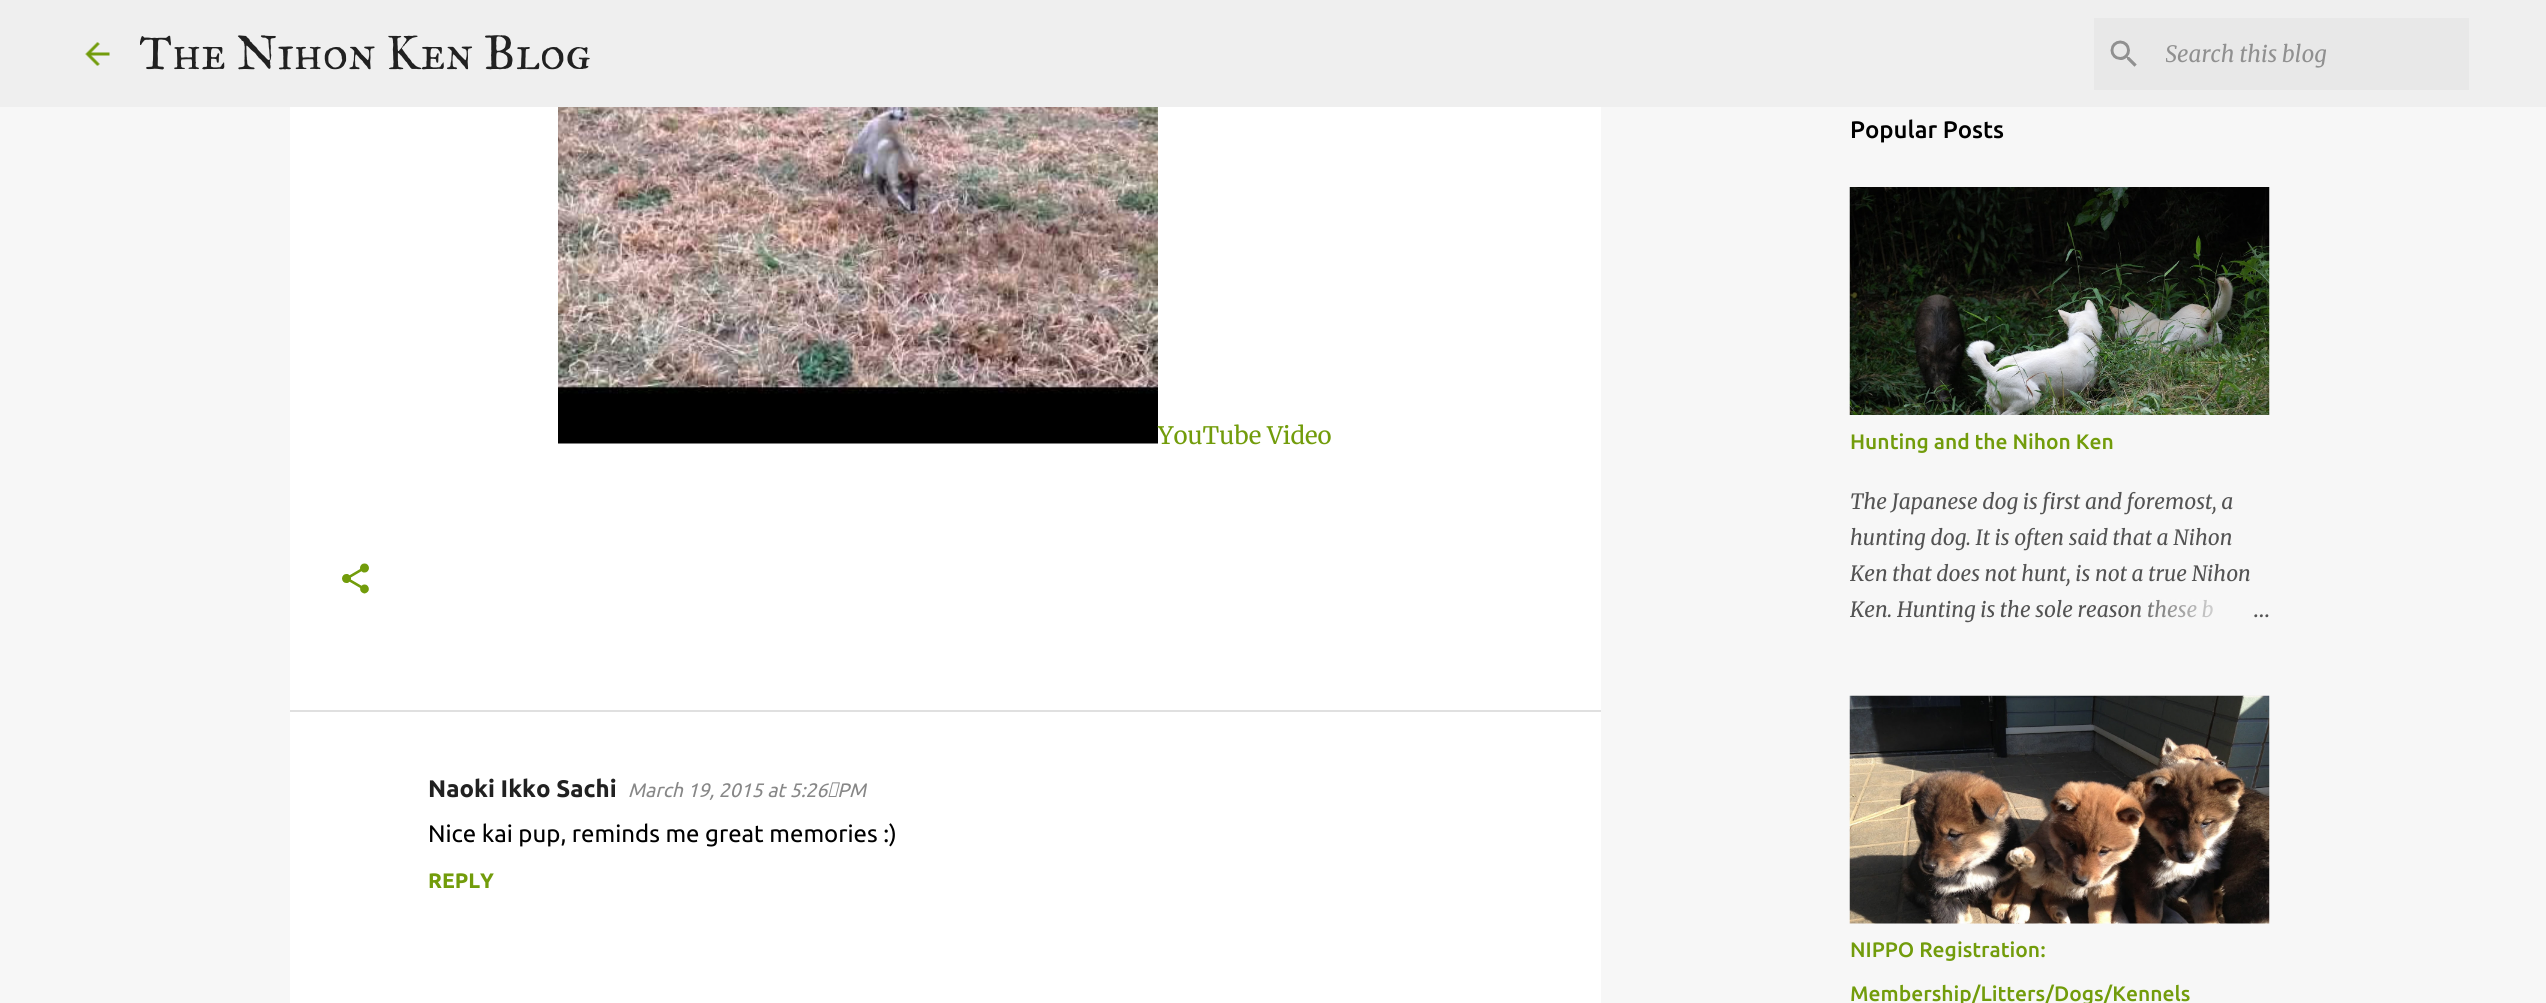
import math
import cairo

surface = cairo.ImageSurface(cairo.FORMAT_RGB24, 2546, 1003)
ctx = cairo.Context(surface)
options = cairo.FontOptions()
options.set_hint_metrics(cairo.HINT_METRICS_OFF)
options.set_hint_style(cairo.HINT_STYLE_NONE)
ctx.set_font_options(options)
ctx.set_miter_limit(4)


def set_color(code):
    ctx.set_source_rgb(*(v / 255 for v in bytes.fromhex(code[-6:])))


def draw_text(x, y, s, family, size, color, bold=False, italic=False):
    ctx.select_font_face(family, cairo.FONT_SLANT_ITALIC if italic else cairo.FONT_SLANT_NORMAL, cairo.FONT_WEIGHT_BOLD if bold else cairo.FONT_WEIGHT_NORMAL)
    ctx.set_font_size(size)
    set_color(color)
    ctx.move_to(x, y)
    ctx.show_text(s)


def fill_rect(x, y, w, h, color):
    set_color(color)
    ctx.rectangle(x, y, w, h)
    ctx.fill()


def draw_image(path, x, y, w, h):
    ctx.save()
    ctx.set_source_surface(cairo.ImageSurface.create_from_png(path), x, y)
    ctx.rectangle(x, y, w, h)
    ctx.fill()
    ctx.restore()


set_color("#f7f7f7")
ctx.paint()
fill_rect(0, 0, 2546, 107, "#efefef")
draw_image("assets/img1.png", 85, 42, 25, 24)
ctx.save()
ctx.rectangle(140, 24, 451, 59)
ctx.clip()
draw_text(139, 69, "The Nihon Ken Blog", "IM FELL Great Primer SC", 48, "#212121")
ctx.restore()
fill_rect(2094, 18, 375, 72, "#e8e8e8")
draw_image("assets/img2.png", 2110, 40, 27, 27)
ctx.save()
ctx.rectangle(2166, 41, 291, 28)
ctx.clip()
draw_text(2165, 62, "Search this blog", "Merriweather", 22.5, "#909090", italic=True)
ctx.restore()
fill_rect(290, 107, 1311, 603, "#ffffff")
draw_image("assets/img3.png", 558, 107, 600, 337)
draw_text(1158, 444, "YouTube Video", "Merriweather Light", 24, "#729c0b")
draw_image("assets/img4.png", 342, 563, 27, 31)
fill_rect(290, 712, 1311, 291, "#ffffff")
fill_rect(290, 710, 1311, 2, "#e0e0e0")
draw_text(428, 797, "Naoki Ikko Sachi", "Ubuntu", 24, "#212121", bold=True)
draw_text(628, 797, "March 19, 2015 at 5:26 PM", "Ubuntu", 19.5, "#878787", italic=True)
draw_text(428, 842, "Nice kai pup, reminds me great memories :)", "Ubuntu", 24, "#000000")
draw_text(428, 888, "REPLY", "Ubuntu", 21, "#729c0b", bold=True)
draw_text(1850, 138, "Popular Posts", "Ubuntu Medium", 24, "#000000")
draw_image("assets/img5.png", 1849, 187, 421, 228)
draw_text(1850, 449, "Hunting and the Nihon Ken", "Ubuntu Medium", 21, "#729c0b")
draw_text(1850, 509, "The Japanese dog is first and foremost, a", "Merriweather", 21, "#535353", italic=True)
draw_text(1850, 545, "hunting dog. It is often said that a Nihon", "Merriweather", 21, "#535353", italic=True)
draw_text(1850, 581, "Ken that does not hunt, is not a true Nihon", "Merriweather", 21, "#535353", italic=True)
draw_text(1850, 617, "Ken. Hunting is the sole reason these b", "Merriweather", 21, "#535353", italic=True)
gradient = cairo.LinearGradient(2270, 609, 2126, 609)
gradient.add_color_stop_rgba(0, 0.969, 0.969, 0.969, 1)
gradient.add_color_stop_rgba(0.2, 0.969, 0.969, 0.969, 1)
gradient.add_color_stop_rgba(1, 0.969, 0.969, 0.969, 0)
ctx.set_source(gradient)
ctx.rectangle(2130, 599, 83, 19)
ctx.fill()
draw_text(2253, 617, "…", "Merriweather Light", 21, "#535353")
draw_image("assets/img6.png", 1849, 695, 421, 229)
draw_text(1850, 957, "NIPPO Registration:", "Ubuntu Medium", 21, "#729c0b")
draw_text(1850, 1001, "Membership/Litters/Dogs/Kennels", "Ubuntu Medium", 21, "#729c0b")
surface.write_to_png("output.png")
